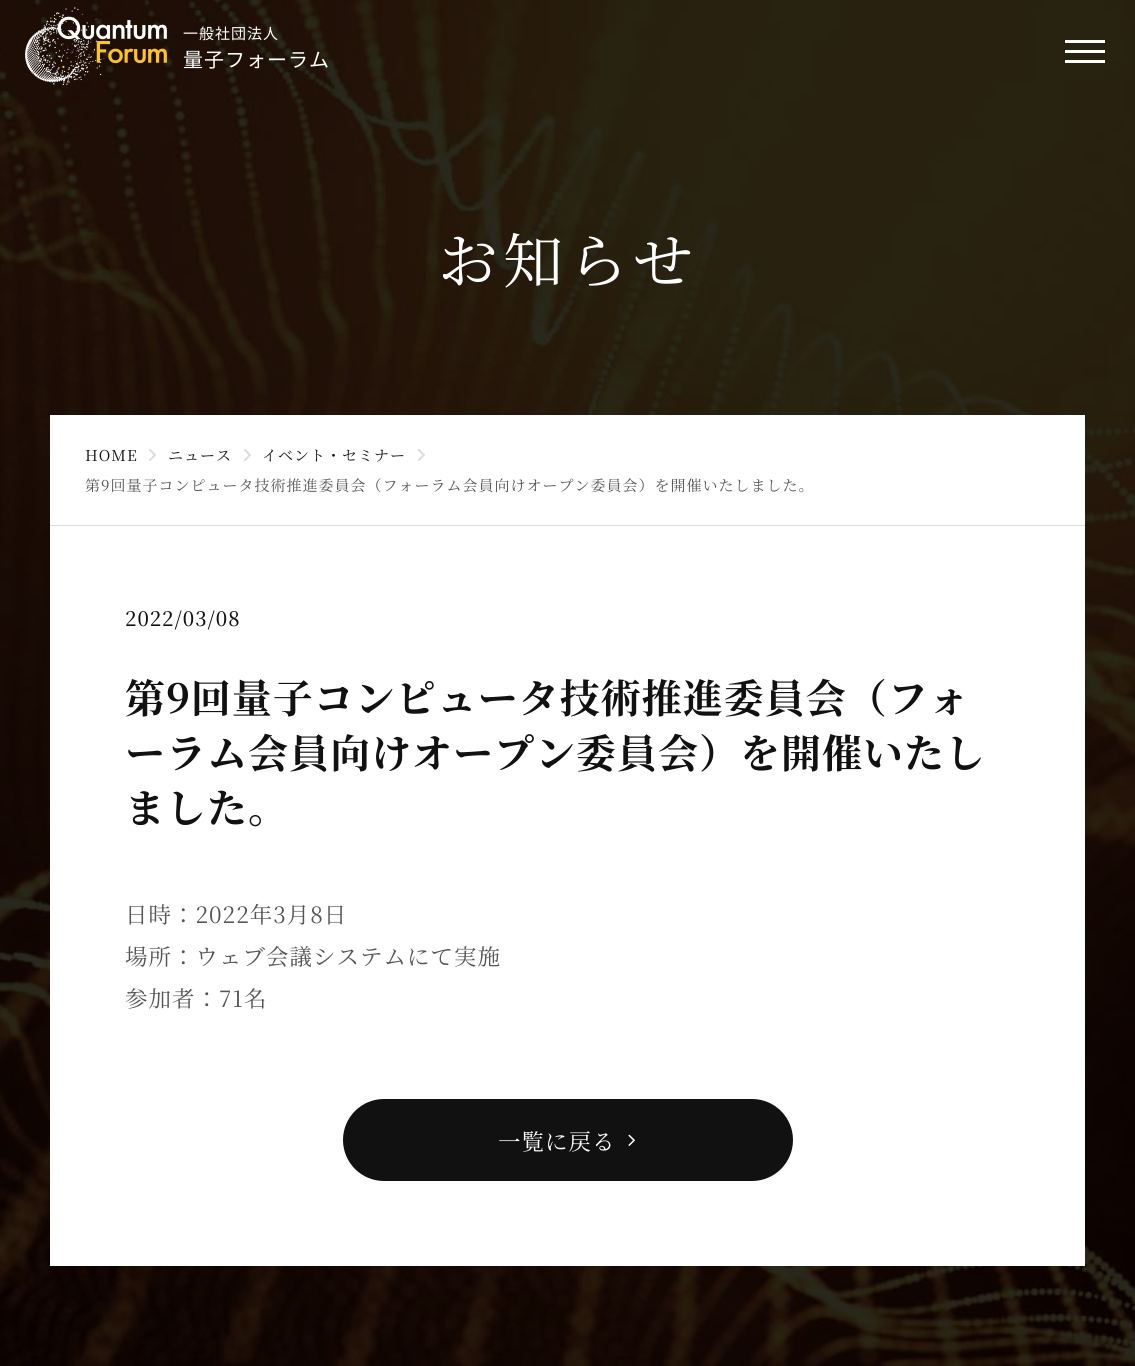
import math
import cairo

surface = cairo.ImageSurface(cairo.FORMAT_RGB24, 1135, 1366)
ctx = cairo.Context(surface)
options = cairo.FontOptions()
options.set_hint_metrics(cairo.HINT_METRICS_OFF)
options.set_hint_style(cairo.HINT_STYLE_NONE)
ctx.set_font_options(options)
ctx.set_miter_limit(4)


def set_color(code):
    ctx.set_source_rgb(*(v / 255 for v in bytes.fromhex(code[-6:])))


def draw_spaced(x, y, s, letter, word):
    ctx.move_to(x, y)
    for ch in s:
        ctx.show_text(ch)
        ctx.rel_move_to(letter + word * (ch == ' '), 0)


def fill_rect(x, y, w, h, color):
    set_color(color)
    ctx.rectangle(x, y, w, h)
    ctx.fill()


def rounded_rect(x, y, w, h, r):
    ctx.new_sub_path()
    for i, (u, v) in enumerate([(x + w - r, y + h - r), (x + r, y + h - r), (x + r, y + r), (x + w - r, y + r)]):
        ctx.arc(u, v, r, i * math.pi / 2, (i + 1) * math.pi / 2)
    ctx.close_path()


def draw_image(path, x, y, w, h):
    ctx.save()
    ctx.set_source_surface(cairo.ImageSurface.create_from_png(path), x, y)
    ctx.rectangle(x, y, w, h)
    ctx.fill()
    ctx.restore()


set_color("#ffffff")
ctx.paint()
draw_image("assets/img1.png", 0, 0, 1135, 1366)
draw_image("assets/img2.png", 25, 7, 142, 78)
ctx.select_font_face("Noto Sans JP")
ctx.set_font_size(15)
set_color("#ffffff")
draw_spaced(183, 39, "一般社団法人", 1, 0)
ctx.set_font_size(20)
draw_spaced(183, 67, "量子フォーラム", 1, 0)
fill_rect(1065, 50, 40, 3, "#ffffff")
fill_rect(1065, 40, 40, 3, "#ffffff")
fill_rect(1065, 60, 40, 3, "#ffffff")
ctx.select_font_face("Noto Serif JP")
ctx.set_font_size(60)
draw_spaced(438, 283, "お知らせ", 5, 0)
fill_rect(50, 415, 1035, 851, "#ffffff")
fill_rect(50, 525, 1035, 1, "#dadada")
ctx.set_font_size(15)
set_color("#111111")
draw_spaced(85, 461, "HOME", 1, 0)
draw_image("assets/img3.png", 149, 449, 7, 12)
draw_spaced(168, 461, "ニュース", 1, 0)
draw_image("assets/img3.png", 244, 449, 7, 12)
draw_spaced(262, 461, "イベント・セミナー", 1, 0)
draw_image("assets/img4.png", 417, 449, 8, 12)
set_color("#555555")
draw_spaced(85, 491, "第9回量子コンピュータ技術推進委員会（フォーラム会員向けオープン委員会）を開催いたしました。", 1, 0)
ctx.select_font_face("Noto Serif JP Medium")
ctx.set_font_size(20)
set_color("#111111")
draw_spaced(125, 626, "2022/03/08", 1, 0)
ctx.select_font_face("Noto Serif JP", cairo.FONT_SLANT_NORMAL, cairo.FONT_WEIGHT_BOLD)
ctx.set_font_size(40)
draw_spaced(125, 713, "第9回量子コンピュータ技術推進委員会（フォ", 1, 0)
draw_spaced(125, 768, "ーラム会員向けオープン委員会）を開催いたし", 1, 0)
draw_spaced(125, 823, "ました。", 1, 0)
ctx.select_font_face("Noto Serif JP")
ctx.set_font_size(22.5)
set_color("#555555")
draw_spaced(125, 923, "日時：2022年3月8日", 1, 0)
draw_spaced(125, 965, "場所：ウェブ会議システムにて実施", 1, 0)
draw_spaced(125, 1007, "参加者：71名", 1, 0)
set_color("#111111")
rounded_rect(343, 1099, 450, 82, 41)
ctx.fill()
set_color("#ffffff")
draw_spaced(498, 1150, "一覧に戻る", 1, 0)
draw_image("assets/img5.png", 628, 1134, 7, 12)
surface.write_to_png("output.png")
